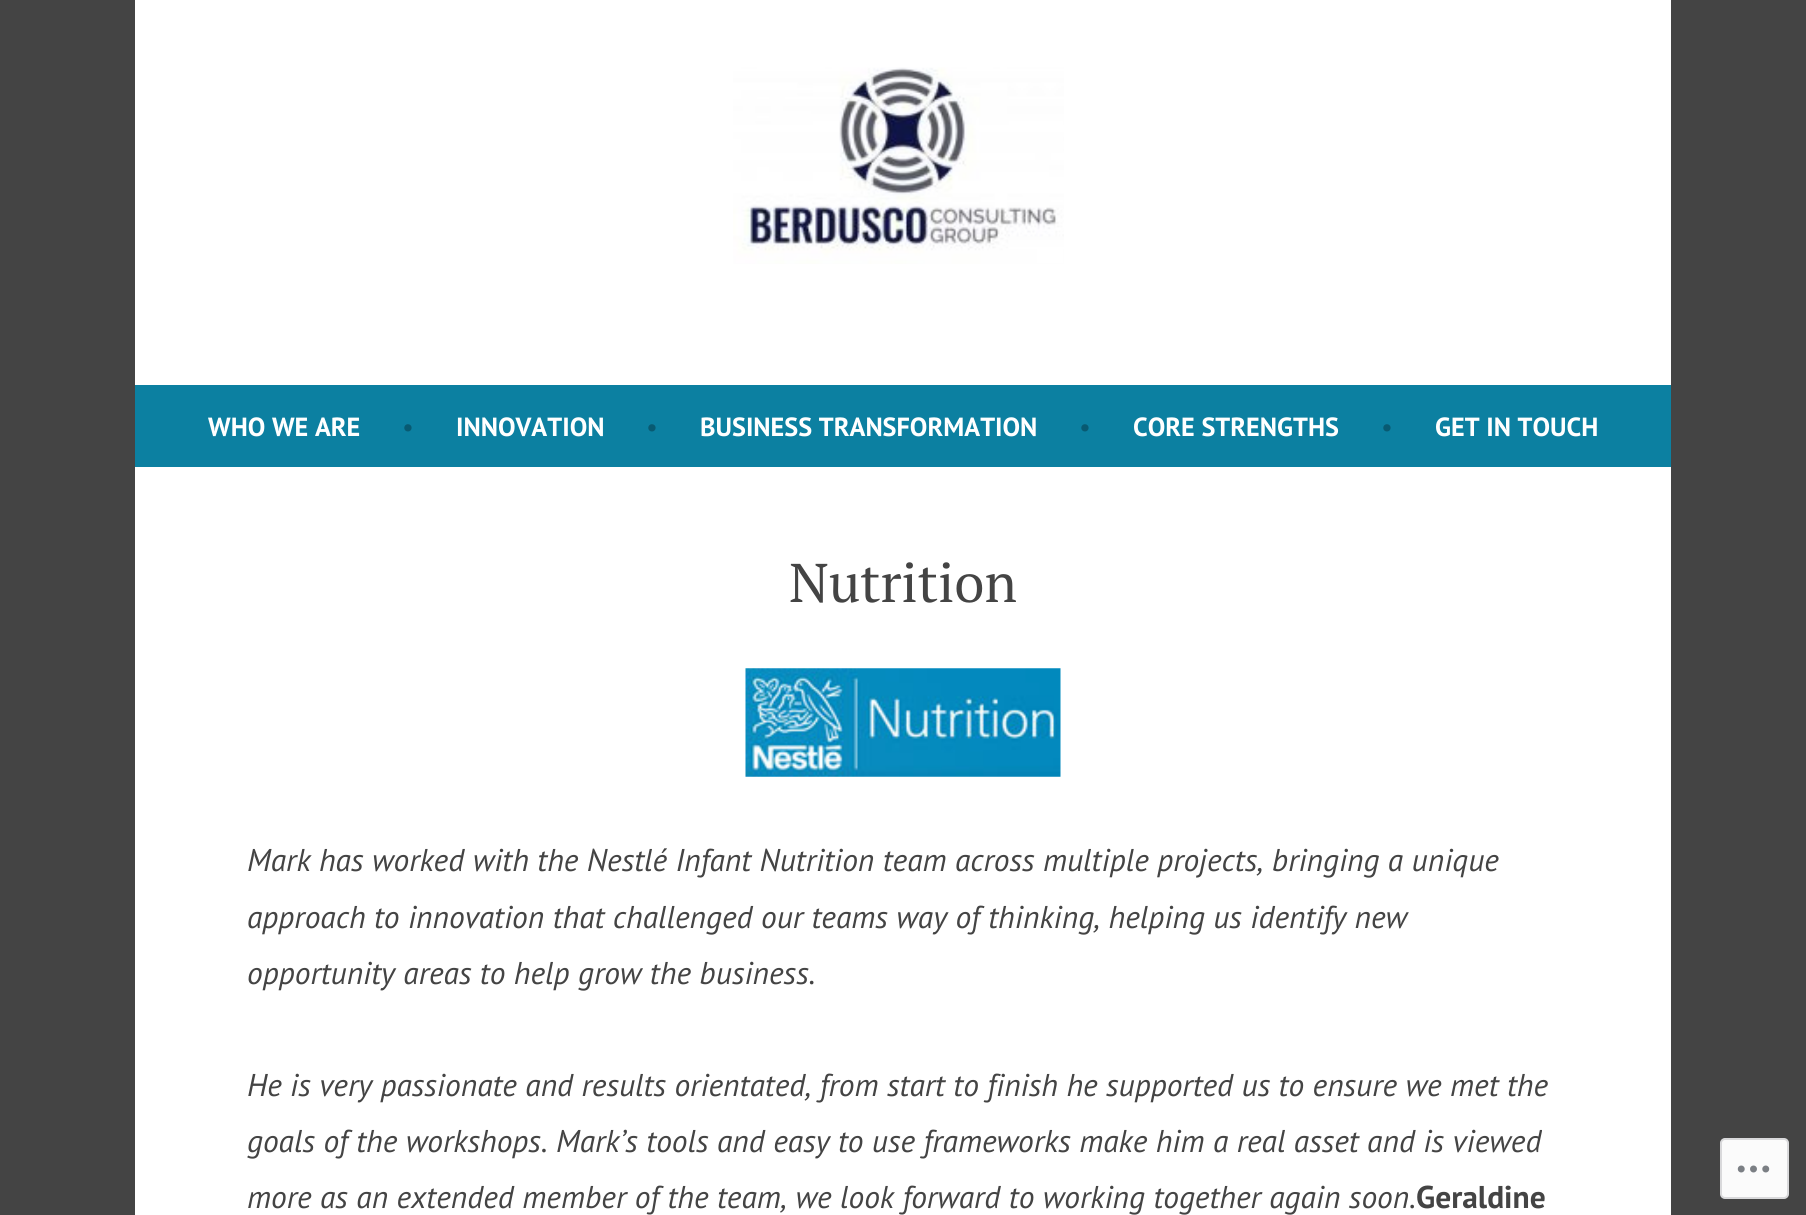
import math
import cairo

surface = cairo.ImageSurface(cairo.FORMAT_RGB24, 1806, 1215)
ctx = cairo.Context(surface)
options = cairo.FontOptions()
options.set_hint_metrics(cairo.HINT_METRICS_OFF)
options.set_hint_style(cairo.HINT_STYLE_NONE)
ctx.set_font_options(options)
ctx.set_miter_limit(4)


def set_color(code):
    ctx.set_source_rgb(*(v / 255 for v in bytes.fromhex(code[-6:])))


def draw_text(x, y, s, family, size, color, bold=False, italic=False):
    ctx.select_font_face(family, cairo.FONT_SLANT_ITALIC if italic else cairo.FONT_SLANT_NORMAL, cairo.FONT_WEIGHT_BOLD if bold else cairo.FONT_WEIGHT_NORMAL)
    ctx.set_font_size(size)
    set_color(color)
    ctx.move_to(x, y)
    ctx.show_text(s)


def fill_rect(x, y, w, h, color):
    set_color(color)
    ctx.rectangle(x, y, w, h)
    ctx.fill()


def rounded_rect(x, y, w, h, r):
    ctx.new_sub_path()
    for i, (u, v) in enumerate([(x + w - r, y + h - r), (x + r, y + h - r), (x + r, y + r), (x + w - r, y + r)]):
        ctx.arc(u, v, r, i * math.pi / 2, (i + 1) * math.pi / 2)
    ctx.close_path()


def draw_image(path, x, y, w, h):
    ctx.save()
    ctx.set_source_surface(cairo.ImageSurface.create_from_png(path), x, y)
    ctx.rectangle(x, y, w, h)
    ctx.fill()
    ctx.restore()


set_color("#444444")
ctx.paint()
fill_rect(135, 0, 1536, 1215, "#ffffff")
draw_image("assets/img1.png", 733, 67, 331, 197)
fill_rect(135, 385, 1536, 82, "#0c80a1")
draw_text(208, 436, "WHO WE ARE", "PT Sans", 26.25, "#ffffff", bold=True)
draw_text(402, 436, "•", "PT Sans", 26.25, "#085a72")
draw_text(456, 436, "INNOVATION", "PT Sans", 26.25, "#ffffff", bold=True)
draw_text(646, 436, "•", "PT Sans", 26.25, "#085a72")
draw_text(700, 436, "BUSINESS TRANSFORMATION", "PT Sans", 26.25, "#ffffff", bold=True)
draw_text(1079, 436, "•", "PT Sans", 26.25, "#085a72")
draw_text(1133, 436, "CORE STRENGTHS", "PT Sans", 26.25, "#ffffff", bold=True)
draw_text(1381, 436, "•", "PT Sans", 26.25, "#085a72")
draw_text(1435, 436, "GET IN TOUCH", "PT Sans", 26.25, "#ffffff", bold=True)
draw_text(789, 602, "Nutrition", "PT Serif", 54.5, "#444444")
draw_image("assets/img2.png", 745, 668, 316, 109)
draw_text(247, 871, "Mark has worked with the Nestlé Infant Nutrition team across multiple projects, bringing a unique", "PT Sans", 31.5, "#444444", italic=True)
draw_text(247, 928, "approach to innovation that challenged our teams way of thinking, helping us identify new", "PT Sans", 31.5, "#444444", italic=True)
draw_text(247, 984, "opportunity areas to help grow the business.", "PT Sans", 31.5, "#444444", italic=True)
draw_text(247, 1096, "He is very passionate and results orientated, from start to finish he supported us to ensure we met the", "PT Sans", 31.5, "#444444", italic=True)
draw_text(247, 1152, "goals of the workshops. Mark’s tools and easy to use frameworks make him a real asset and is viewed", "PT Sans", 31.5, "#444444", italic=True)
draw_text(247, 1208, "more as an extended member of the team, we look forward to working together again soon.", "PT Sans", 31.5, "#444444", italic=True)
draw_text(1416, 1208, "Geraldine", "PT Sans", 31.5, "#444444", bold=True)
set_color("#fbfbfb")
rounded_rect(1721, 1139, 67, 59, 4)
ctx.fill_preserve()
set_color("#d9d9db")
ctx.stroke()
draw_image("assets/img3.png", 1737, 1165, 33, 8)
surface.write_to_png("output.png")
